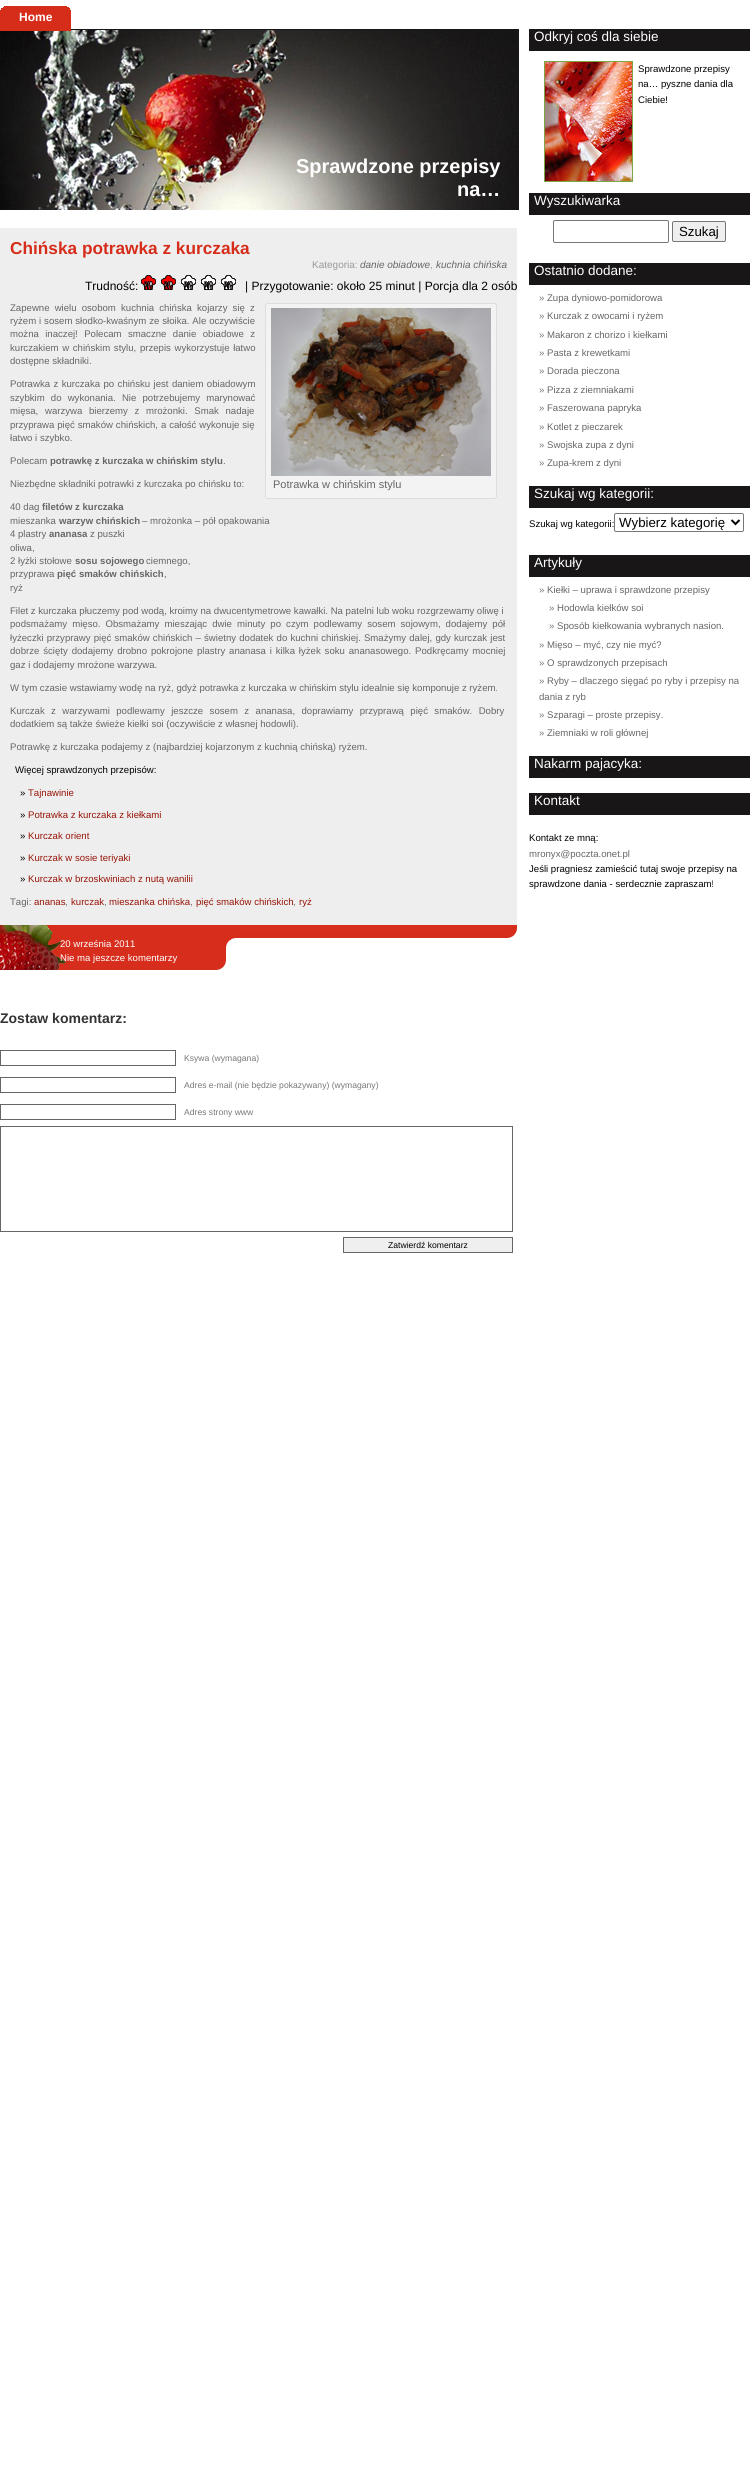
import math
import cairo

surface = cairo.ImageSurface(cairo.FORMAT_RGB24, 756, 2473)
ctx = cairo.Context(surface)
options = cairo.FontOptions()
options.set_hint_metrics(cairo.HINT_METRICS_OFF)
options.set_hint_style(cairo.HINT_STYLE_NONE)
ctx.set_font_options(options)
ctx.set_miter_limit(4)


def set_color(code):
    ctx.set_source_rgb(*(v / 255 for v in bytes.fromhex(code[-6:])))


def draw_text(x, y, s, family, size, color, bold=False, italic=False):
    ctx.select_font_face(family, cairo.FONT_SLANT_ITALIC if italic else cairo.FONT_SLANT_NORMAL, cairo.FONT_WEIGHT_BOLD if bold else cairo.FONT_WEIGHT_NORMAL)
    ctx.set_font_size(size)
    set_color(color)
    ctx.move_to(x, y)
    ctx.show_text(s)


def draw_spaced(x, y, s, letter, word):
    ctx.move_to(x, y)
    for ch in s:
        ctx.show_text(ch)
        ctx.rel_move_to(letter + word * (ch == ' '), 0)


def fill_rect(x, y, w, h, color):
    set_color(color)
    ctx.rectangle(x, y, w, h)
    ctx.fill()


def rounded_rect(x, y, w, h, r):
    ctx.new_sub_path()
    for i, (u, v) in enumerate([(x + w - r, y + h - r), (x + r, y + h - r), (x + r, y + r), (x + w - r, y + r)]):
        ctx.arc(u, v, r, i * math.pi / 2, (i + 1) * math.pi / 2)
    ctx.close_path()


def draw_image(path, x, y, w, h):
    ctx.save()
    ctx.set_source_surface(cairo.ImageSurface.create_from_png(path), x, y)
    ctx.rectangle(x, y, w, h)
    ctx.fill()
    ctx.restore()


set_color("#ffffff")
ctx.paint()
fill_rect(71, 29, 448, 181, "#181617")
draw_image("assets/img3.png", 0, 30, 517, 180)
draw_image("assets/img1.png", 0, 6, 19, 25)
fill_rect(19, 6, 33, 25, "#d62d1b")
draw_text(19, 21, "Home", "Liberation Sans", 12, "#ffffff", bold=True)
draw_image("assets/img2.png", 52, 6, 19, 25)
draw_text(296, 173, "Sprawdzone przepisy", "Liberation Sans", 20, "#ffffff", bold=True)
draw_text(457, 196, "na…", "Liberation Sans", 20, "#ffffff", bold=True)
fill_rect(0, 228, 517, 697, "#eeeeee")
draw_image("assets/img4.png", 0, 925, 517, 45)
draw_text(10, 254, "Chińska potrawka z kurczaka", "Liberation Sans", 17.25, "#d62d1b", bold=True)
draw_text(312, 268, "Kategoria:", "Liberation Sans", 10, "#999999")
draw_text(360, 268, "danie obiadowe", "Liberation Sans", 10, "#666666", italic=True)
draw_text(430, 268, ",", "Liberation Sans", 10, "#999999")
draw_text(436, 268, "kuchnia chińska", "Liberation Sans", 10, "#666666", italic=True)
draw_text(85, 290, "Trudność:", "Liberation Sans", 12, "#000000")
draw_image("assets/img5.png", 141, 275, 15, 15)
draw_image("assets/img5.png", 161, 275, 15, 15)
draw_image("assets/img6.png", 181, 275, 15, 15)
draw_image("assets/img6.png", 201, 275, 15, 15)
draw_image("assets/img6.png", 221, 275, 15, 15)
draw_text(245, 290, "| Przygotowanie: około 25 minut | Porcja dla 2 osób", "Liberation Sans", 12, "#000000")
ctx.set_font_size(9.6)
set_color("#666666")
draw_spaced(10, 311, "Zapewne wielu osobom kuchnia chińska kojarzy się z", 0, 2.5)
draw_spaced(10, 324, "ryżem i sosem słodko-kwaśnym ze słoika. Ale oczywiście", 0, 0.25)
draw_spaced(10, 337, "można inaczej! Polecam smaczne danie obiadowe z", 0, 3.75)
draw_spaced(10, 351, "kurczakiem w chińskim stylu, przepis wykorzystuje łatwo", 0, 1)
draw_text(10, 364, "dostępne składniki.", "Liberation Sans", 9.6, "#666666")
draw_spaced(10, 387, "Potrawka z kurczaka po chińsku jest daniem obiadowym", 0, 0.75)
draw_spaced(10, 401, "szybkim do wykonania. Nie potrzebujemy marynować", 0, 3.5)
draw_spaced(10, 414, "mięsa, warzywa bierzemy z mrożonki. Smak nadaje", 0, 4)
draw_spaced(10, 428, "przyprawa pięć smaków chińskich, a całość wykonuje się", 0, 0.25)
draw_text(10, 441, "łatwo i szybko.", "Liberation Sans", 9.6, "#666666")
draw_text(10, 464, "Polecam", "Liberation Sans", 9.6, "#666666")
draw_text(50, 464, "potrawkę z kurczaka w chińskim stylu", "Liberation Sans", 9.6, "#666666", bold=True)
draw_text(223, 464, ".", "Liberation Sans", 9.6, "#666666")
draw_text(10, 487, "Niezbędne składniki potrawki z kurczaka po chińsku to:", "Liberation Sans", 9.6, "#666666")
set_color("#f3f3f3")
rounded_rect(265.5, 303.5, 231, 195, 2.5)
ctx.fill_preserve()
set_color("#dddddd")
ctx.set_line_width(1)
ctx.stroke()
draw_image("assets/img7.png", 271, 308, 220, 168)
draw_text(273, 488, "Potrawka w chińskim stylu", "Liberation Sans", 11, "#666666")
draw_text(10, 510, "40 dag", "Liberation Sans", 9.6, "#666666")
draw_text(42, 510, "filetów z kurczaka", "Liberation Sans", 9.6, "#666666", bold=True)
draw_text(10, 524, "mieszanka", "Liberation Sans", 9.6, "#666666")
draw_text(59, 524, "warzyw chińskich", "Liberation Sans", 9.6, "#666666", bold=True)
draw_text(142, 524, "– mrożonka – pół opakowania", "Liberation Sans", 9.6, "#666666")
draw_text(10, 537, "4 plastry", "Liberation Sans", 9.6, "#666666")
draw_text(49, 537, "ananasa", "Liberation Sans", 9.6, "#666666", bold=True)
draw_text(90, 537, "z puszki", "Liberation Sans", 9.6, "#666666")
draw_text(10, 551, "oliwa,", "Liberation Sans", 9.6, "#666666")
draw_text(10, 564, "2 łyżki stołowe", "Liberation Sans", 9.6, "#666666")
draw_text(75, 564, "sosu sojowego", "Liberation Sans", 9.6, "#666666", bold=True)
draw_text(146, 564, "ciemnego,", "Liberation Sans", 9.6, "#666666")
draw_text(10, 577, "przyprawa", "Liberation Sans", 9.6, "#666666")
draw_text(57, 577, "pięć smaków chińskich", "Liberation Sans", 9.6, "#666666", bold=True)
draw_text(164, 577, ",", "Liberation Sans", 9.6, "#666666")
draw_text(10, 591, "ryż", "Liberation Sans", 9.6, "#666666")
draw_text(10, 614, "Filet z kurczaka płuczemy pod wodą, kroimy na dwucentymetrowe kawałki. Na patelni lub woku rozgrzewamy oliwę i", "Liberation Sans", 9.6, "#666666")
draw_spaced(10, 627, "podsmażamy mięso. Obsmażamy mieszając dwie minuty po czym podlewamy sosem sojowym, dodajemy pół", 0, 2.4)
draw_spaced(10, 641, "łyżeczki przyprawy pięć smaków chińskich – świetny dodatek do kuchni chińskiej. Smażymy dalej, gdy kurczak jest", 0, 0.5)
draw_spaced(10, 654, "dobrze ścięty dodajemy drobno pokrojone plastry ananasa i kilka łyżek soku ananasowego. Podkręcamy mocniej", 0, 1.2)
draw_text(10, 668, "gaz i dodajemy mrożone warzywa.", "Liberation Sans", 9.6, "#666666")
draw_text(10, 691, "W tym czasie wstawiamy wodę na ryż, gdyż potrawka z kurczaka w chińskim stylu idealnie się komponuje z ryżem.", "Liberation Sans", 9.6, "#666666")
draw_spaced(10, 714, "Kurczak z warzywami podlewamy jeszcze sosem z ananasa, doprawiamy przyprawą pięć smaków. Dobry", 0, 3.75)
draw_text(10, 727, "dodatkiem są także świeże kiełki soi (oczywiście z własnej hodowli).", "Liberation Sans", 9.6, "#666666")
draw_text(10, 750, "Potrawkę z kurczaka podajemy z (najbardziej kojarzonym z kuchnią chińską) ryżem.", "Liberation Sans", 9.6, "#666666")
draw_text(15, 773, "Więcej sprawdzonych przepisów:", "Liberation Sans", 9.6, "#000000")
draw_text(20, 796, "»", "Liberation Sans", 9.6, "#000000")
draw_text(28, 796, "Tajnawinie", "Liberation Sans", 9.6, "#971407")
draw_text(20, 818, "»", "Liberation Sans", 9.6, "#000000")
draw_text(28, 818, "Potrawka z kurczaka z kiełkami", "Liberation Sans", 9.6, "#971407")
draw_text(20, 839, "»", "Liberation Sans", 9.6, "#000000")
draw_text(28, 839, "Kurczak orient", "Liberation Sans", 9.6, "#971407")
draw_text(20, 861, "»", "Liberation Sans", 9.6, "#000000")
draw_text(28, 861, "Kurczak w sosie teriyaki", "Liberation Sans", 9.6, "#971407")
draw_text(20, 882, "»", "Liberation Sans", 9.6, "#000000")
draw_text(28, 882, "Kurczak w brzoskwiniach z nutą wanilii", "Liberation Sans", 9.6, "#971407")
draw_text(10, 905, "Tagi:", "Liberation Sans", 9.6, "#666666")
draw_text(34, 905, "ananas", "Liberation Sans", 9.6, "#971407")
draw_text(65, 905, ",", "Liberation Sans", 9.6, "#666666")
draw_text(71, 905, "kurczak", "Liberation Sans", 9.6, "#971407")
draw_text(104, 905, ",", "Liberation Sans", 9.6, "#666666")
draw_text(109, 905, "mieszanka chińska", "Liberation Sans", 9.6, "#971407")
draw_text(190, 905, ",", "Liberation Sans", 9.6, "#666666")
draw_text(196, 905, "pięć smaków chińskich", "Liberation Sans", 9.6, "#971407")
draw_text(293, 905, ",", "Liberation Sans", 9.6, "#666666")
draw_text(299, 905, "ryż", "Liberation Sans", 9.6, "#971407")
draw_text(60, 947, "20 września 2011", "Liberation Sans", 9.6, "#ffffff")
draw_text(60, 961, "Nie ma jeszcze komentarzy", "Liberation Sans", 9.6, "#ffffff")
draw_text(0, 1023, "Zostaw komentarz:", "Liberation Sans", 14, "#333333", bold=True)
ctx.rectangle(0.5, 1050.5, 175, 15)
set_color("#666666")
ctx.stroke()
draw_text(184, 1061, "Ksywa (wymagana)", "Liberation Sans", 8.6, "#777777")
ctx.rectangle(0.5, 1077.5, 175, 15)
set_color("#666666")
ctx.stroke()
draw_text(184, 1088, "Adres e-mail (nie będzie pokazywany) (wymagany)", "Liberation Sans", 8.6, "#777777")
ctx.rectangle(0.5, 1104.5, 175, 15)
set_color("#666666")
ctx.stroke()
draw_text(184, 1115, "Adres strony www", "Liberation Sans", 8.6, "#777777")
ctx.rectangle(0.5, 1126.5, 512, 105)
set_color("#666666")
ctx.stroke()
set_color("#efefef")
ctx.rectangle(343.5, 1237.5, 169, 15)
ctx.fill_preserve()
set_color("#666666")
ctx.stroke()
draw_text(388, 1248, "Zatwierdź komentarz", "Liberation Sans", 8.6, "#000000")
fill_rect(529, 29, 221, 22, "#181617")
draw_text(534, 41, "Odkryj coś dla siebie", "Liberation Sans", 13.5, "#ffffff")
draw_image("assets/img8.png", 545, 62, 87, 119)
ctx.rectangle(544.5, 61.5, 88, 120)
set_color("#7ca546")
ctx.stroke()
draw_text(638, 72, "Sprawdzone przepisy", "Liberation Sans", 9.6, "#000000")
draw_text(638, 87, "na… pyszne dania dla", "Liberation Sans", 9.6, "#000000")
draw_text(638, 103, "Ciebie!", "Liberation Sans", 9.6, "#000000")
fill_rect(529, 193, 221, 22, "#181617")
draw_text(534, 205, "Wyszukiwarka", "Liberation Sans", 13.5, "#ffffff")
rounded_rect(553.5, 220.5, 115, 22, 1.5)
set_color("#767676")
ctx.stroke()
set_color("#efefef")
rounded_rect(672.5, 221.5, 53, 20, 1.5)
ctx.fill_preserve()
set_color("#767676")
ctx.stroke()
draw_text(679, 236, "Szukaj", "Liberation Sans", 13.25, "#000000")
fill_rect(529, 263, 221, 22, "#181617")
draw_text(534, 275, "Ostatnio dodane:", "Liberation Sans", 13.5, "#ffffff")
draw_text(539, 301, "»", "Liberation Sans", 9.6, "#777777")
draw_text(547, 301, "Zupa dyniowo-pomidorowa", "Liberation Sans", 9.6, "#666666")
draw_text(539, 319, "»", "Liberation Sans", 9.6, "#777777")
draw_text(547, 319, "Kurczak z owocami i ryżem", "Liberation Sans", 9.6, "#666666")
draw_text(539, 338, "»", "Liberation Sans", 9.6, "#777777")
draw_text(547, 338, "Makaron z chorizo i kiełkami", "Liberation Sans", 9.6, "#666666")
draw_text(539, 356, "»", "Liberation Sans", 9.6, "#777777")
draw_text(547, 356, "Pasta z krewetkami", "Liberation Sans", 9.6, "#666666")
draw_text(539, 374, "»", "Liberation Sans", 9.6, "#777777")
draw_text(547, 374, "Dorada pieczona", "Liberation Sans", 9.6, "#666666")
draw_text(539, 393, "»", "Liberation Sans", 9.6, "#777777")
draw_text(547, 393, "Pizza z ziemniakami", "Liberation Sans", 9.6, "#666666")
draw_text(539, 411, "»", "Liberation Sans", 9.6, "#777777")
draw_text(547, 411, "Faszerowana papryka", "Liberation Sans", 9.6, "#666666")
draw_text(539, 430, "»", "Liberation Sans", 9.6, "#777777")
draw_text(547, 430, "Kotlet z pieczarek", "Liberation Sans", 9.6, "#666666")
draw_text(539, 448, "»", "Liberation Sans", 9.6, "#777777")
draw_text(547, 448, "Swojska zupa z dyni", "Liberation Sans", 9.6, "#666666")
draw_text(539, 466, "»", "Liberation Sans", 9.6, "#777777")
draw_text(547, 466, "Zupa-krem z dyni", "Liberation Sans", 9.6, "#666666")
fill_rect(529, 486, 221, 22, "#181617")
draw_text(534, 498, "Szukaj wg kategorii:", "Liberation Sans", 13.5, "#ffffff")
draw_text(529, 527, "Szukaj wg kategorii:", "Liberation Sans", 9.6, "#000000")
rounded_rect(614.5, 513.5, 129, 18, 1.5)
set_color("#767676")
ctx.stroke()
ctx.new_path()
ctx.move_to(731.5, 520)
ctx.line_to(735.5, 524)
ctx.line_to(739.5, 520)
set_color("#000000")
ctx.set_line_width(2)
ctx.stroke()
draw_text(619, 527, "Wybierz kategorię", "Liberation Sans", 13.25, "#000000")
fill_rect(529, 555, 221, 22, "#181617")
draw_text(534, 567, "Artykuły", "Liberation Sans", 13.5, "#ffffff")
draw_text(539, 593, "»", "Liberation Sans", 9.6, "#777777")
draw_text(547, 593, "Kiełki – uprawa i sprawdzone przepisy", "Liberation Sans", 9.6, "#666666")
draw_text(549, 611, "»", "Liberation Sans", 9.6, "#777777")
draw_text(557, 611, "Hodowla kiełków soi", "Liberation Sans", 9.6, "#666666")
draw_text(549, 629, "»", "Liberation Sans", 9.6, "#777777")
draw_text(557, 629, "Sposób kiełkowania wybranych nasion.", "Liberation Sans", 9.6, "#666666")
draw_text(539, 648, "»", "Liberation Sans", 9.6, "#777777")
draw_text(547, 648, "Mięso – myć, czy nie myć?", "Liberation Sans", 9.6, "#666666")
draw_text(539, 666, "»", "Liberation Sans", 9.6, "#777777")
draw_text(547, 666, "O sprawdzonych przepisach", "Liberation Sans", 9.6, "#666666")
draw_text(539, 684, "»", "Liberation Sans", 9.6, "#777777")
draw_text(547, 684, "Ryby – dlaczego sięgać po ryby i przepisy na", "Liberation Sans", 9.6, "#666666")
draw_text(539, 700, "dania z ryb", "Liberation Sans", 9.6, "#666666")
draw_text(539, 718, "»", "Liberation Sans", 9.6, "#777777")
draw_text(547, 718, "Szparagi – proste przepisy.", "Liberation Sans", 9.6, "#666666")
draw_text(539, 736, "»", "Liberation Sans", 9.6, "#777777")
draw_text(547, 736, "Ziemniaki w roli głównej", "Liberation Sans", 9.6, "#666666")
fill_rect(529, 756, 221, 22, "#181617")
draw_text(534, 768, "Nakarm pajacyka:", "Liberation Sans", 13.5, "#ffffff")
fill_rect(529, 793, 221, 22, "#181617")
draw_text(534, 805, "Kontakt", "Liberation Sans", 13.5, "#ffffff")
draw_text(529, 841, "Kontakt ze mną:", "Liberation Sans", 9.6, "#000000")
draw_text(529, 857, "mronyx@poczta.onet.pl", "Liberation Sans", 9.6, "#666666")
draw_text(529, 872, "Jeśli pragniesz zamieścić tutaj swoje przepisy na", "Liberation Sans", 9.6, "#000000")
draw_text(529, 887, "sprawdzone dania - serdecznie zapraszam!", "Liberation Sans", 9.6, "#000000")
surface.write_to_png("output.png")
